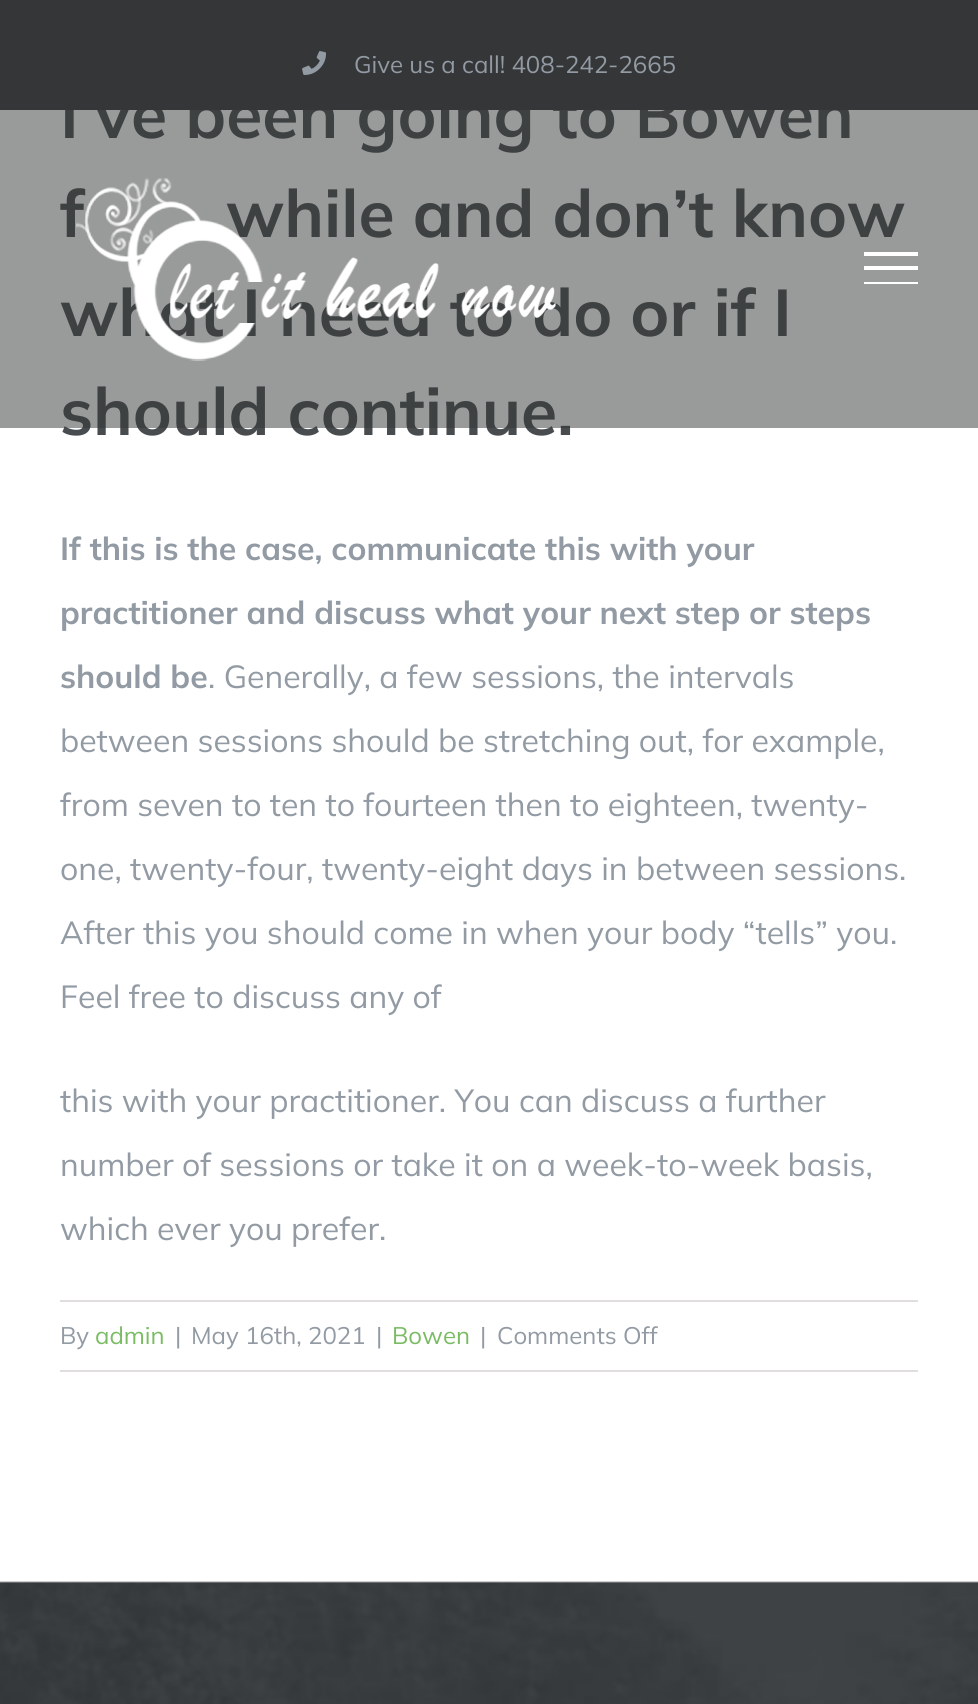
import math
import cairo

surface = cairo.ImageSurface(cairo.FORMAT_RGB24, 978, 1704)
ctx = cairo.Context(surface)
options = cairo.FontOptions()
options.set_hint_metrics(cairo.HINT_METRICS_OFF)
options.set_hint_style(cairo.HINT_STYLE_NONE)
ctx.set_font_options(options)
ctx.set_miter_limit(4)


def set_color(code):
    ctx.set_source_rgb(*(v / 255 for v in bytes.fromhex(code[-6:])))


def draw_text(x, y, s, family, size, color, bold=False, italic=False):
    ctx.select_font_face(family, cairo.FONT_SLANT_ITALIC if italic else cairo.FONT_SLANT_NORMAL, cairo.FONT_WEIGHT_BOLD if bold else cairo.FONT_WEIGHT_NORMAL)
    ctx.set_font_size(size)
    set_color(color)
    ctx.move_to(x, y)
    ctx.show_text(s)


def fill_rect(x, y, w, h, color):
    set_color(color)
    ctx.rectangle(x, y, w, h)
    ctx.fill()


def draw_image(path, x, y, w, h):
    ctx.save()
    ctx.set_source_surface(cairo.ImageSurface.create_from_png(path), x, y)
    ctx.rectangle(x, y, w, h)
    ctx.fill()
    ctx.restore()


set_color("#ffffff")
ctx.paint()
draw_text(60, 138, "I’ve been going to Bowen", "Mulish", 66, "#494c4e", bold=True)
fill_rect(0, 0, 978, 110, "#353637")
draw_image("assets/img1.png", 302, 51, 24, 24)
draw_text(354, 73, "Give us a call! 408-242-2665", "Mulish", 24, "#929aa3")
draw_text(60, 237, "f", "Mulish", 66, "#494c4e", bold=True)
draw_text(226, 237, "while and don’t know", "Mulish", 66, "#494c4e", bold=True)
draw_text(60, 336, "what I need to do or if I", "Mulish", 66, "#494c4e", bold=True)
draw_text(60, 435, "should continue.", "Mulish", 66, "#494c4e", bold=True)
ctx.set_source_rgba(0.208, 0.212, 0.216, 0.5)
ctx.rectangle(0, 110, 978, 318)
ctx.fill()
draw_image("assets/img2.png", 76, 178, 480, 183)
fill_rect(864, 252, 54, 4, "#ffffff")
fill_rect(864, 266, 54, 4, "#ffffff")
fill_rect(864, 282, 54, 2, "#ffffff")
draw_text(60, 560, "If this is the case, communicate this with your", "Mulish", 32, "#929aa3", bold=True)
draw_text(60, 624, "practitioner and discuss what your next step or steps", "Mulish", 32, "#929aa3", bold=True)
draw_text(60, 688, "should be", "Mulish", 32, "#929aa3", bold=True)
draw_text(208, 688, ". Generally, a few sessions, the intervals", "Mulish", 32, "#929aa3")
draw_text(60, 752, "between sessions should be stretching out, for example,", "Mulish", 32, "#929aa3")
draw_text(60, 816, "from seven to ten to fourteen then to eighteen, twenty-", "Mulish", 32, "#929aa3")
draw_text(60, 880, "one, twenty-four, twenty-eight days in between sessions.", "Mulish", 32, "#929aa3")
draw_text(60, 944, "After this you should come in when your body “tells” you.", "Mulish", 32, "#929aa3")
draw_text(60, 1008, "Feel free to discuss any of", "Mulish", 32, "#929aa3")
draw_text(60, 1112, "this with your practitioner. You can discuss a further", "Mulish", 32, "#929aa3")
draw_text(60, 1176, "number of sessions or take it on a week-to-week basis,", "Mulish", 32, "#929aa3")
draw_text(60, 1240, "which ever you prefer.", "Mulish", 32, "#929aa3")
fill_rect(60, 1300, 858, 2, "#e0dede")
fill_rect(60, 1370, 858, 2, "#e0dede")
draw_text(60, 1344, "By", "Mulish", 24, "#929aa3")
draw_text(95, 1344, "admin", "Mulish", 24, "#7abc64")
draw_text(175, 1344, "|", "Mulish", 24, "#929aa3")
draw_text(191, 1344, "May 16th, 2021", "Mulish", 24, "#929aa3")
draw_text(376, 1344, "|", "Mulish", 24, "#929aa3")
draw_text(392, 1344, "Bowen", "Mulish", 24, "#7abc64")
draw_text(480, 1344, "|", "Mulish", 24, "#929aa3")
draw_text(497, 1344, "Comments Off", "Mulish", 24, "#929aa3")
draw_image("assets/img3.png", 0, 1581, 978, 123)
surface.write_to_png("output.png")
